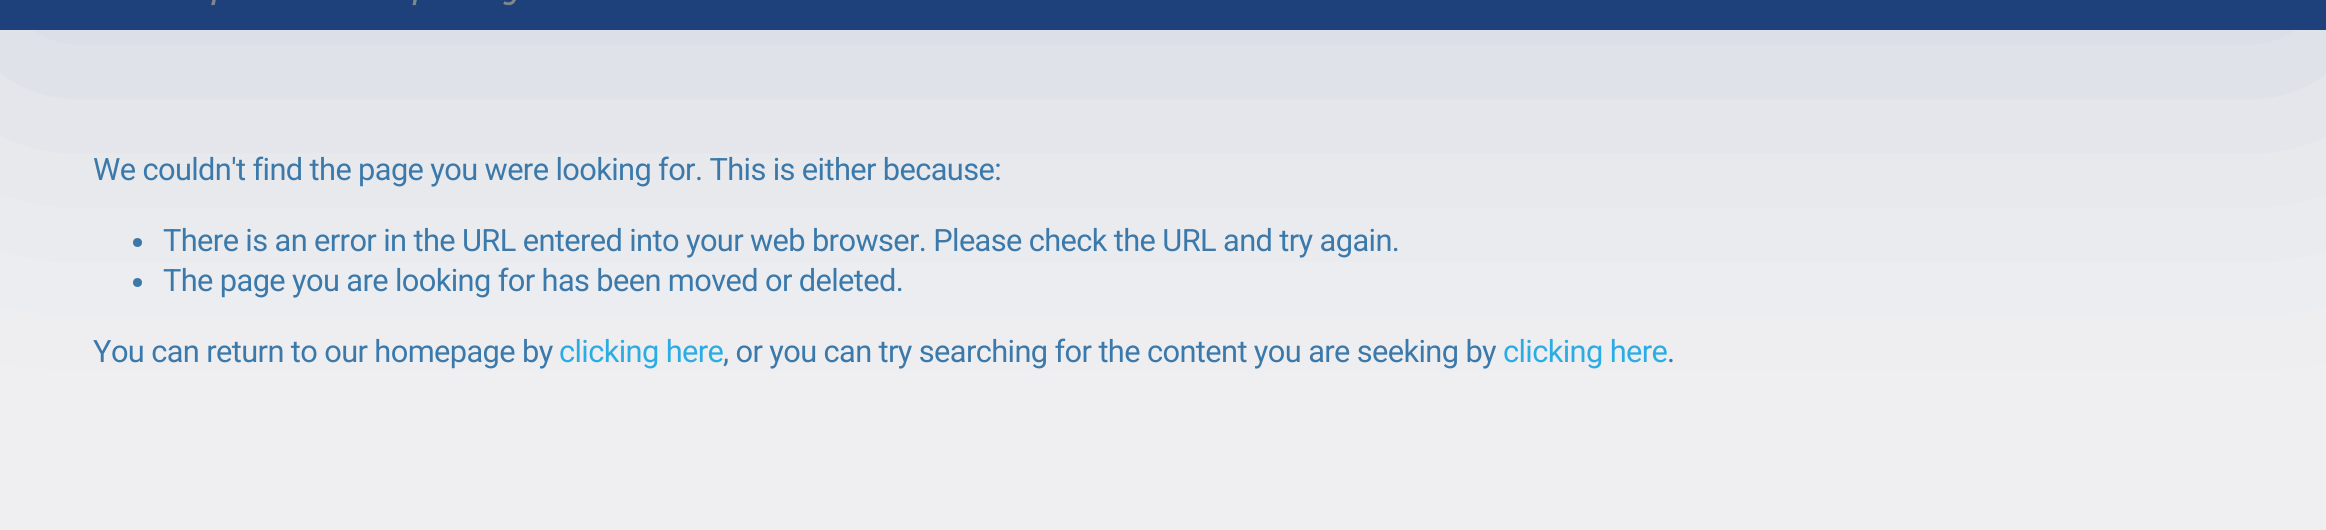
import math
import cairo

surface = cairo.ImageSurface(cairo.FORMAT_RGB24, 2326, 530)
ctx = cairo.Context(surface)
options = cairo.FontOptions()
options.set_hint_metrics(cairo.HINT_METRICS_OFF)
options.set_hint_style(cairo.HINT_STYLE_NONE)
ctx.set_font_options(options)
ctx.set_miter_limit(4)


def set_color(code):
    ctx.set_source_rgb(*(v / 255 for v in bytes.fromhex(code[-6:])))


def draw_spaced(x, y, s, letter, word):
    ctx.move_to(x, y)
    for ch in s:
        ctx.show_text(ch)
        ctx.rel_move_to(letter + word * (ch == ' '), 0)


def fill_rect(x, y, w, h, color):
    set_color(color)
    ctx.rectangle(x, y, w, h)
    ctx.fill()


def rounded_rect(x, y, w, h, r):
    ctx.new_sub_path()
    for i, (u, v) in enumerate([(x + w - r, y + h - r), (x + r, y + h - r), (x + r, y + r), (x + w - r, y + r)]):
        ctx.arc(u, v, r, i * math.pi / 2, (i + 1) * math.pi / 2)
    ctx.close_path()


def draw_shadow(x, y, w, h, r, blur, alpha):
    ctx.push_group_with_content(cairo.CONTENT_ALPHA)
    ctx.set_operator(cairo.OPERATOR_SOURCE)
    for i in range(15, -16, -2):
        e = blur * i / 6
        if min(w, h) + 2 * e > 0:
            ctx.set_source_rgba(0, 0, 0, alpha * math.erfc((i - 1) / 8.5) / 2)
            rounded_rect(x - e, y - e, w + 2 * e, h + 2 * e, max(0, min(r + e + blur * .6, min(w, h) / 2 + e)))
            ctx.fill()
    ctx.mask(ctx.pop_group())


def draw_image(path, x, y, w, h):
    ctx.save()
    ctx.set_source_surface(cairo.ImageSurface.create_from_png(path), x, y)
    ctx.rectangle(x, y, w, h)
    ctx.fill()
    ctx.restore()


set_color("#efeff2")
ctx.paint()
set_color("#3b79aa")
ctx.arc(137.5, 242.5, 4.5, 0, 2 * math.pi)
ctx.fill()
ctx.arc(137.5, 282.5, 4.5, 0, 2 * math.pi)
ctx.fill()
set_color("#1e417c")
draw_shadow(-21, -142, 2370, 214, 0, 163, 0.15)
fill_rect(0, 0, 2326, 30, "#1e417c")
draw_image("assets/img1.png", 211, 0, 305, 6)
ctx.select_font_face("Roboto")
ctx.set_font_size(30.8)
set_color("#3b79aa")
draw_spaced(93, 180, "We couldn't find the page you were looking for. This is either because:", -0.62, 0)
draw_spaced(163, 251, "There is an error in the URL entered into your web browser. Please check the URL and try again.", -0.62, 0)
draw_spaced(163, 291, "The page you are looking for has been moved or deleted.", -0.62, 0)
draw_spaced(93, 362, "You can return to our homepage by", -0.62, 0)
set_color("#2bace3")
draw_spaced(559, 362, "clicking here", -0.62, 0)
set_color("#3b79aa")
draw_spaced(723, 362, ", or you can try searching for the", -0.62, 0)
draw_spaced(1147, 362, "content you are seeking by", -0.62, 0)
set_color("#2bace3")
draw_spaced(1503, 362, "clicking here", -0.62, 0)
set_color("#3b79aa")
draw_spaced(1667, 362, ".", -0.62, 0)
surface.write_to_png("output.png")
